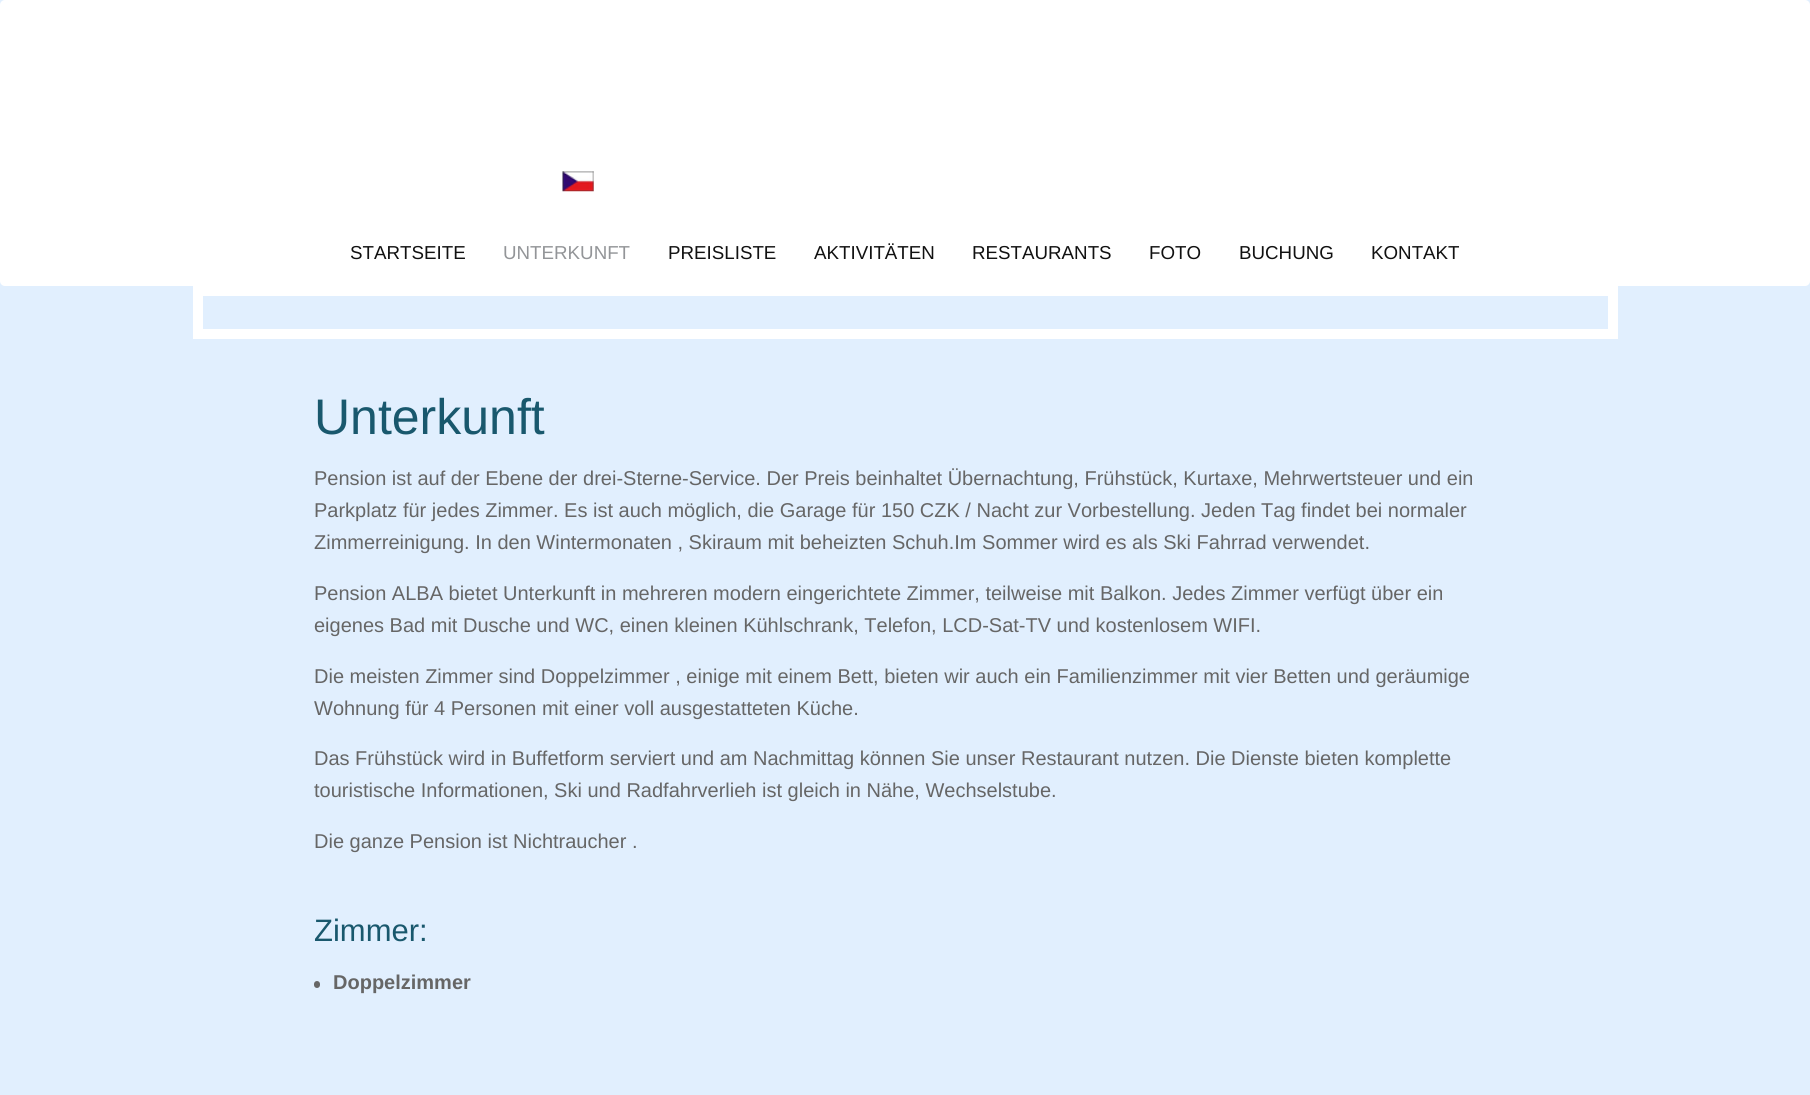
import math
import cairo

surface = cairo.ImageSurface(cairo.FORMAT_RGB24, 1810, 1095)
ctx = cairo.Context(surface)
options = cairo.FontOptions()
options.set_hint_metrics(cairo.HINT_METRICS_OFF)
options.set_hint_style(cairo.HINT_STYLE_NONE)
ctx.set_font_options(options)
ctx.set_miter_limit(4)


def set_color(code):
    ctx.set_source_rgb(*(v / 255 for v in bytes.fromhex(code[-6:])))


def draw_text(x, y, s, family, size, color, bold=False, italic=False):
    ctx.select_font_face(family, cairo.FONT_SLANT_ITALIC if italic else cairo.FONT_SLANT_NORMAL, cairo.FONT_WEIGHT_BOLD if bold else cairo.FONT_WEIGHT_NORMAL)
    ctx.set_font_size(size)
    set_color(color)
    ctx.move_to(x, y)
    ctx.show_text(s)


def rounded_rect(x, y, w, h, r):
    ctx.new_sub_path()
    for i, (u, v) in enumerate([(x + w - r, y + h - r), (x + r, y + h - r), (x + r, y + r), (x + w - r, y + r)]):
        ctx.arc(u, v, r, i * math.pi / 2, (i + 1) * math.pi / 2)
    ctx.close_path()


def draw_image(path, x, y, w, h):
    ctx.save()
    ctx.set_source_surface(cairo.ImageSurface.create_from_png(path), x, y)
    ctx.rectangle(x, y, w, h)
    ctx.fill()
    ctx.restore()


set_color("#e1effe")
ctx.paint()
set_color("#ffffff")
rounded_rect(0, 0, 1810, 286, 5)
ctx.fill()
draw_image("assets/img1.png", 562, 171, 32, 21)
draw_text(350, 259, "STARTSEITE", "Liberation Sans", 18.75, "#111111")
draw_text(503, 259, "UNTERKUNFT", "Liberation Sans", 18.75, "#939598")
draw_text(668, 259, "PREISLISTE", "Liberation Sans", 18.75, "#111111")
draw_text(814, 259, "AKTIVITÄTEN", "Liberation Sans", 18.75, "#111111")
draw_text(972, 259, "RESTAURANTS", "Liberation Sans", 18.75, "#111111")
draw_text(1149, 259, "FOTO", "Liberation Sans", 18.75, "#111111")
draw_text(1239, 259, "BUCHUNG", "Liberation Sans", 18.75, "#111111")
draw_text(1371, 259, "KONTAKT", "Liberation Sans", 18.75, "#111111")
ctx.rectangle(198, 291, 1415, 43)
set_color("#ffffff")
ctx.set_line_width(10)
ctx.stroke()
draw_text(314, 434, "Unterkunft", "Liberation Sans", 50, "#19586d")
draw_text(314, 485, "Pension ist auf der Ebene der drei-Sterne-Service. Der Preis beinhaltet Übernachtung, Frühstück, Kurtaxe, Mehrwertsteuer und ein", "Liberation Sans", 20, "#666666")
draw_text(314, 517, "Parkplatz für jedes Zimmer. Es ist auch möglich, die Garage für 150 CZK / Nacht zur Vorbestellung. Jeden Tag findet bei normaler", "Liberation Sans", 20, "#666666")
draw_text(314, 549, "Zimmerreinigung. In den Wintermonaten , Skiraum mit beheizten Schuh.Im Sommer wird es als Ski Fahrrad verwendet.", "Liberation Sans", 20, "#666666")
draw_text(314, 600, "Pension ALBA bietet Unterkunft in mehreren modern eingerichtete Zimmer, teilweise mit Balkon. Jedes Zimmer verfügt über ein", "Liberation Sans", 20, "#666666")
draw_text(314, 632, "eigenes Bad mit Dusche und WC, einen kleinen Kühlschrank, Telefon, LCD-Sat-TV und kostenlosem WIFI.", "Liberation Sans", 20, "#666666")
draw_text(314, 683, "Die meisten Zimmer sind Doppelzimmer , einige mit einem Bett, bieten wir auch ein Familienzimmer mit vier Betten und geräumige", "Liberation Sans", 20, "#666666")
draw_text(314, 715, "Wohnung für 4 Personen mit einer voll ausgestatteten Küche.", "Liberation Sans", 20, "#666666")
draw_text(314, 765, "Das Frühstück wird in Buffetform serviert und am Nachmittag können Sie unser Restaurant nutzen. Die Dienste bieten komplette", "Liberation Sans", 20, "#666666")
draw_text(314, 797, "touristische Informationen, Ski und Radfahrverlieh ist gleich in Nähe, Wechselstube.", "Liberation Sans", 20, "#666666")
draw_text(314, 848, "Die ganze Pension ist Nichtraucher .", "Liberation Sans", 20, "#666666")
draw_text(314, 941, "Zimmer:", "Liberation Sans", 31, "#19586d")
set_color("#666666")
rounded_rect(314, 981, 6, 7, 3)
ctx.fill()
draw_text(333, 989, "Doppelzimmer", "Liberation Sans", 20, "#666666", bold=True)
surface.write_to_png("output.png")
